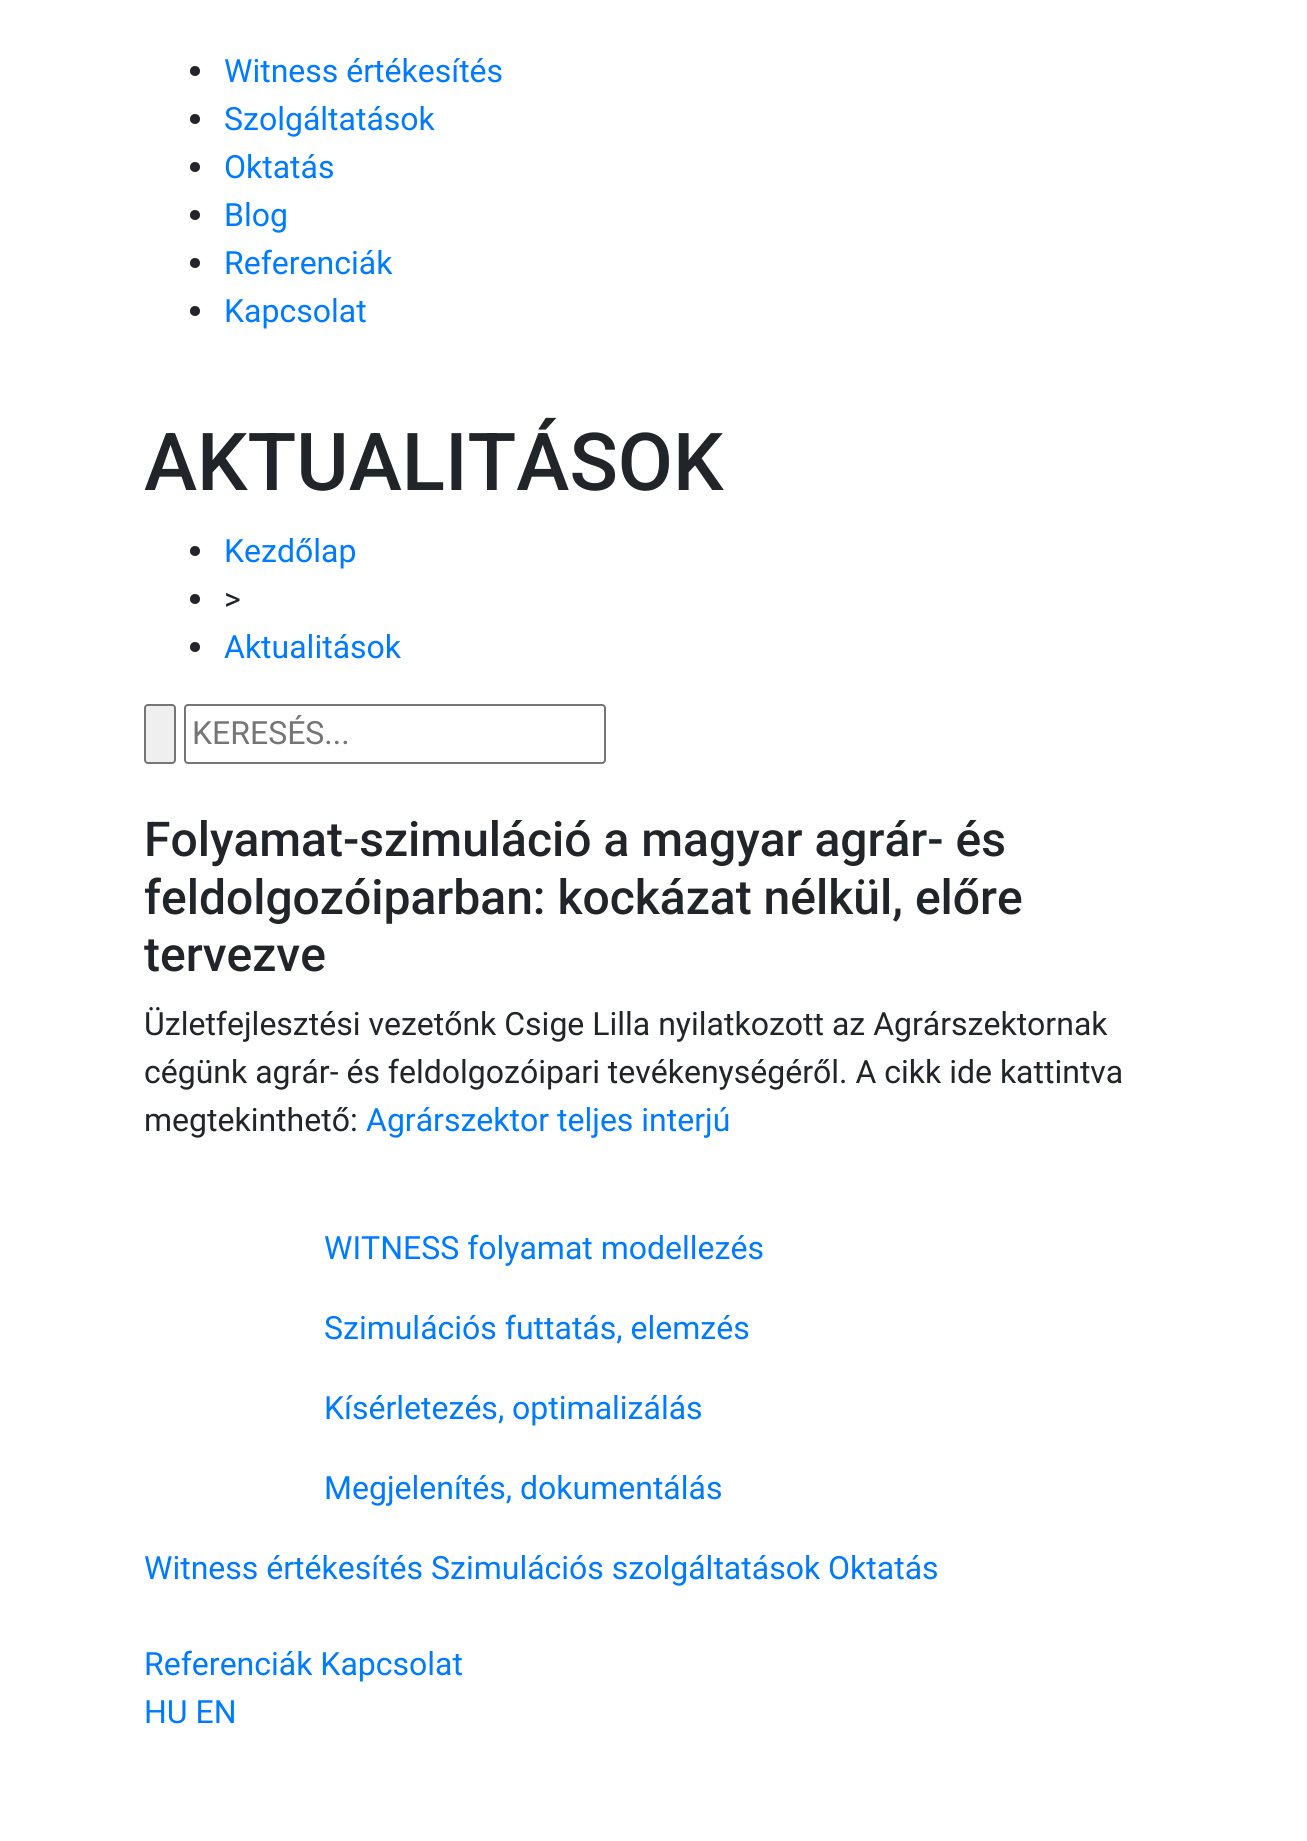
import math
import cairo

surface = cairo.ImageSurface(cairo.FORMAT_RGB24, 1307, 1841)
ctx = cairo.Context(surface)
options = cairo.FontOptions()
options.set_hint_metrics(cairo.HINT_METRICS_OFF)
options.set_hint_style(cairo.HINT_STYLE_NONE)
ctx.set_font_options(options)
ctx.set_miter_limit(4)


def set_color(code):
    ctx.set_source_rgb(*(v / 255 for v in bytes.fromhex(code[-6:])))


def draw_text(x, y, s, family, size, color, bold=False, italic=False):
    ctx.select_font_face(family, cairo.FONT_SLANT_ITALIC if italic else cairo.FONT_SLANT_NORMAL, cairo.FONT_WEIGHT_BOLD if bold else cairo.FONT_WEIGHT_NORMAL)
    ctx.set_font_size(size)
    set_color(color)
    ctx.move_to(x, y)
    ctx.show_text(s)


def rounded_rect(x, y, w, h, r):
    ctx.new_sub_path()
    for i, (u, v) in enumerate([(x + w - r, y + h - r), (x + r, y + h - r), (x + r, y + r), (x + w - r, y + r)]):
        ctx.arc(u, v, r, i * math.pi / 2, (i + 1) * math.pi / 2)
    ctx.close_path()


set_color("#ffffff")
ctx.paint()
set_color("#212529")
ctx.arc(195, 71, 5, 0, 2 * math.pi)
ctx.fill()
draw_text(224, 82, "Witness értékesítés", "Roboto", 32, "#007bff")
set_color("#212529")
ctx.new_path()
ctx.arc(195, 119, 5, 0, 2 * math.pi)
ctx.fill()
draw_text(224, 130, "Szolgáltatások", "Roboto", 32, "#007bff")
set_color("#212529")
ctx.new_path()
ctx.arc(195, 167, 5, 0, 2 * math.pi)
ctx.fill()
draw_text(224, 178, "Oktatás", "Roboto", 32, "#007bff")
set_color("#212529")
ctx.new_path()
ctx.arc(195, 215, 5, 0, 2 * math.pi)
ctx.fill()
draw_text(224, 226, "Blog", "Roboto", 32, "#007bff")
set_color("#212529")
ctx.new_path()
ctx.arc(195, 263, 5, 0, 2 * math.pi)
ctx.fill()
draw_text(224, 274, "Referenciák", "Roboto", 32, "#007bff")
set_color("#212529")
ctx.new_path()
ctx.arc(195, 311, 5, 0, 2 * math.pi)
ctx.fill()
draw_text(224, 322, "Kapcsolat", "Roboto", 32, "#007bff")
draw_text(144, 490, "AKTUALITÁSOK", "Roboto Medium", 80, "#212529")
ctx.new_path()
ctx.arc(195, 551, 5, 0, 2 * math.pi)
ctx.fill()
draw_text(224, 562, "Kezdőlap", "Roboto", 32, "#007bff")
set_color("#212529")
ctx.new_path()
ctx.arc(195, 599, 5, 0, 2 * math.pi)
ctx.fill()
draw_text(224, 610, ">", "Roboto", 32, "#212529")
ctx.new_path()
ctx.arc(195, 647, 5, 0, 2 * math.pi)
ctx.fill()
draw_text(224, 658, "Aktualitások", "Roboto", 32, "#007bff")
set_color("#efefef")
rounded_rect(145, 705, 30, 58, 3)
ctx.fill_preserve()
set_color("#767676")
ctx.stroke()
rounded_rect(185, 705, 420, 58, 3)
ctx.stroke()
draw_text(192, 744, "KERESÉS...", "Roboto", 32, "#757575")
draw_text(144, 856, "Folyamat-szimuláció a magyar agrár- és", "Roboto Medium", 48, "#212529")
draw_text(144, 914, "feldolgozóiparban: kockázat nélkül, előre", "Roboto Medium", 48, "#212529")
draw_text(144, 971, "tervezve", "Roboto Medium", 48, "#212529")
draw_text(144, 1035, "Üzletfejlesztési vezetőnk Csige Lilla nyilatkozott az Agrárszektornak", "Roboto", 32, "#212529")
draw_text(144, 1083, "cégünk agrár- és feldolgozóipari tevékenységéről. A cikk ide kattintva", "Roboto", 32, "#212529")
draw_text(144, 1131, "megtekinthető:", "Roboto", 32, "#212529")
draw_text(366, 1131, "Agrárszektor teljes interjú", "Roboto", 32, "#007bff")
draw_text(324, 1259, "WITNESS folyamat modellezés", "Roboto", 32, "#007bff")
draw_text(324, 1339, "Szimulációs futtatás, elemzés", "Roboto", 32, "#007bff")
draw_text(324, 1419, "Kísérletezés, optimalizálás", "Roboto", 32, "#007bff")
draw_text(324, 1499, "Megjelenítés, dokumentálás", "Roboto", 32, "#007bff")
draw_text(144, 1579, "Witness értékesítés Szimulációs szolgáltatások Oktatás", "Roboto", 32, "#007bff")
draw_text(144, 1675, "Referenciák Kapcsolat", "Roboto", 32, "#007bff")
draw_text(144, 1723, "HU EN", "Roboto", 32, "#007bff")
surface.write_to_png("output.png")
